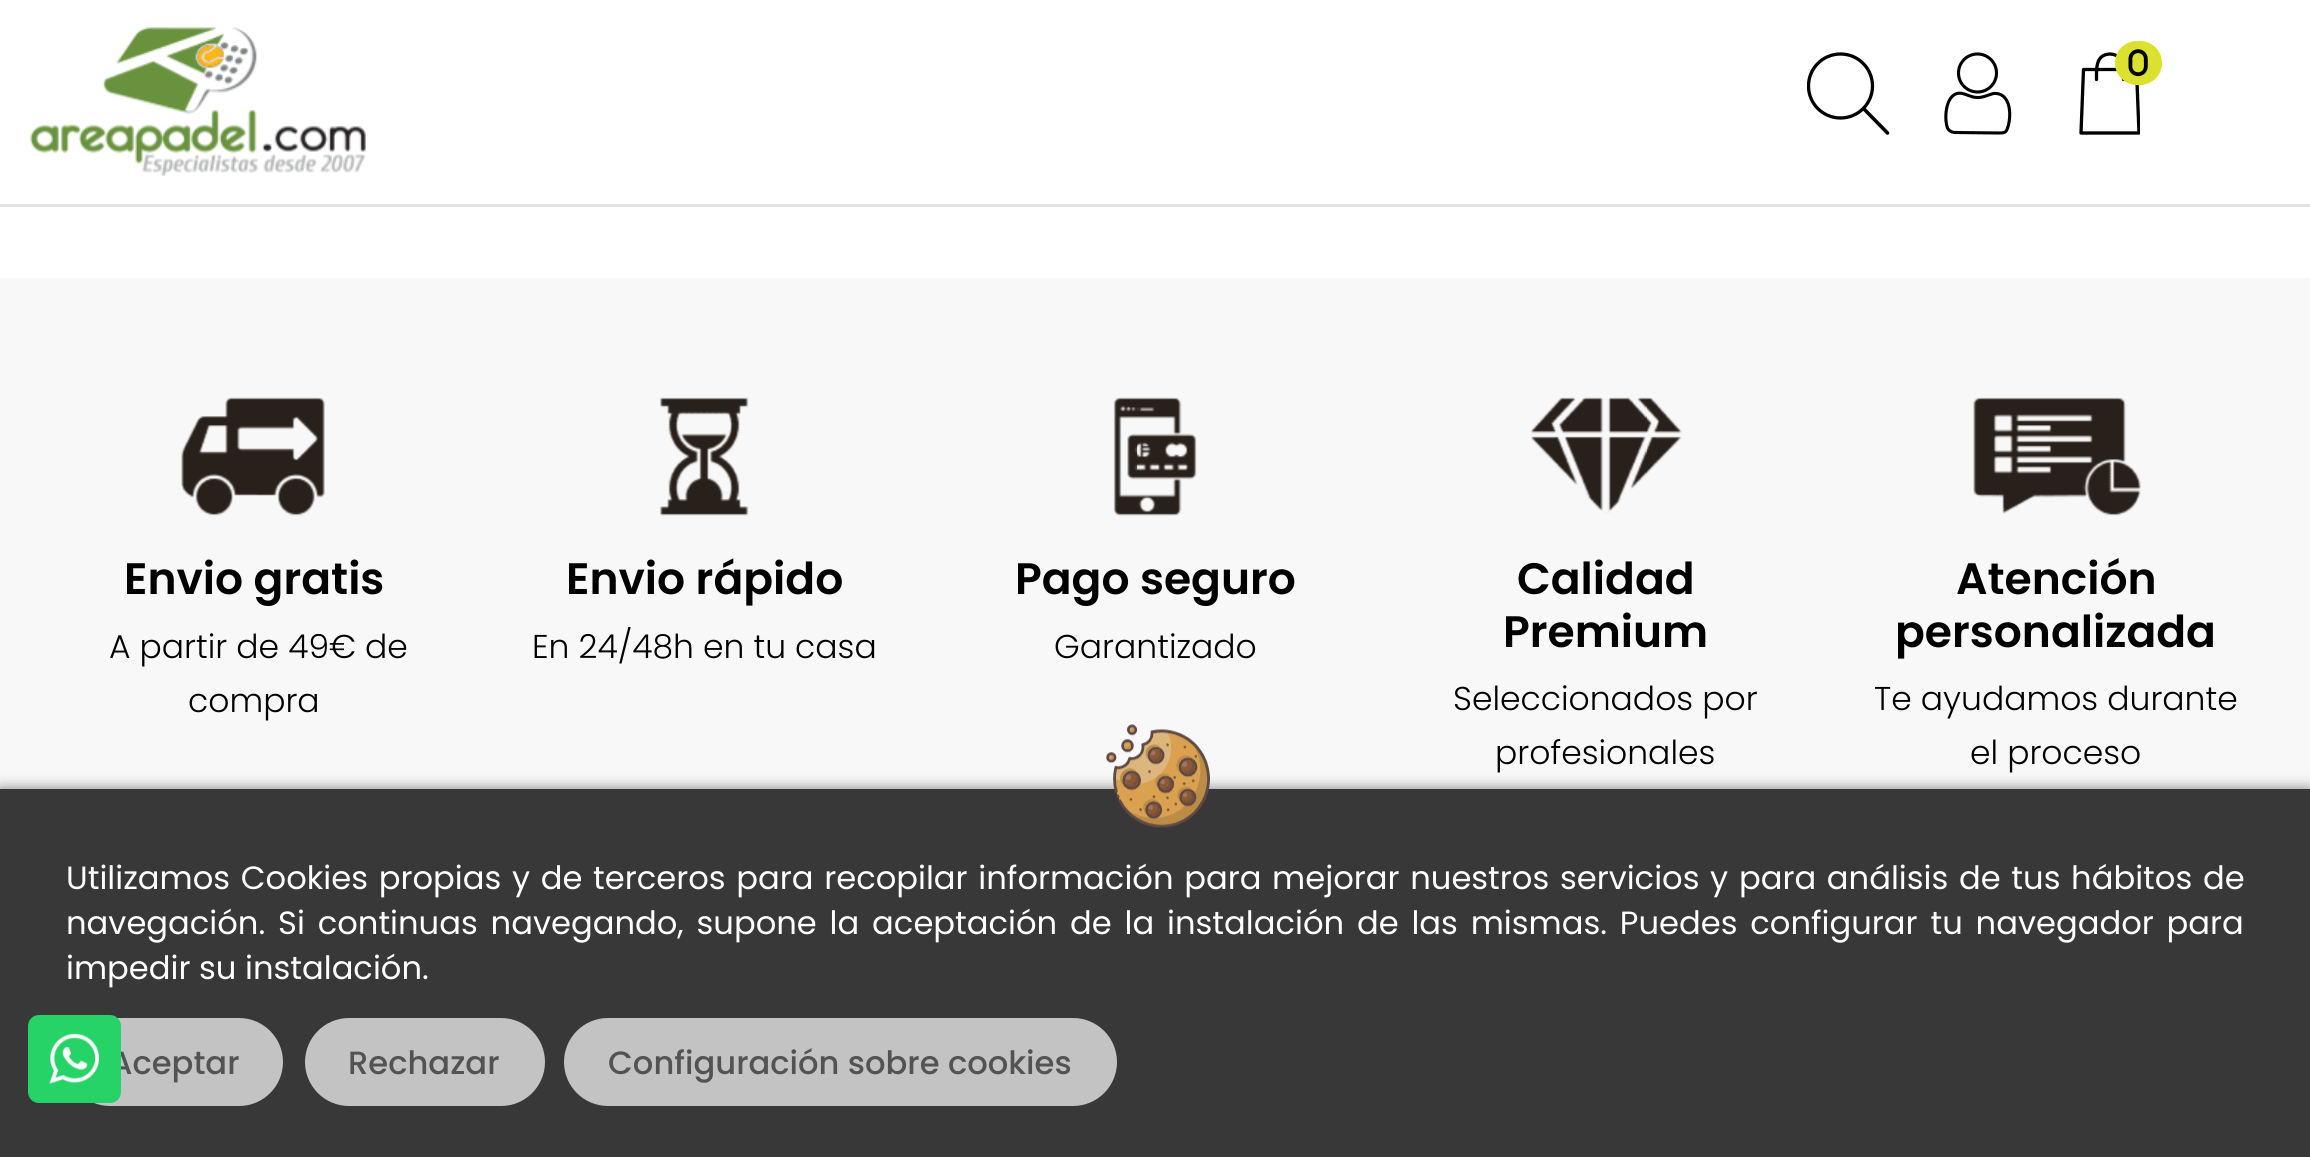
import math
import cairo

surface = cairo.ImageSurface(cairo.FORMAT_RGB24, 2310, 1157)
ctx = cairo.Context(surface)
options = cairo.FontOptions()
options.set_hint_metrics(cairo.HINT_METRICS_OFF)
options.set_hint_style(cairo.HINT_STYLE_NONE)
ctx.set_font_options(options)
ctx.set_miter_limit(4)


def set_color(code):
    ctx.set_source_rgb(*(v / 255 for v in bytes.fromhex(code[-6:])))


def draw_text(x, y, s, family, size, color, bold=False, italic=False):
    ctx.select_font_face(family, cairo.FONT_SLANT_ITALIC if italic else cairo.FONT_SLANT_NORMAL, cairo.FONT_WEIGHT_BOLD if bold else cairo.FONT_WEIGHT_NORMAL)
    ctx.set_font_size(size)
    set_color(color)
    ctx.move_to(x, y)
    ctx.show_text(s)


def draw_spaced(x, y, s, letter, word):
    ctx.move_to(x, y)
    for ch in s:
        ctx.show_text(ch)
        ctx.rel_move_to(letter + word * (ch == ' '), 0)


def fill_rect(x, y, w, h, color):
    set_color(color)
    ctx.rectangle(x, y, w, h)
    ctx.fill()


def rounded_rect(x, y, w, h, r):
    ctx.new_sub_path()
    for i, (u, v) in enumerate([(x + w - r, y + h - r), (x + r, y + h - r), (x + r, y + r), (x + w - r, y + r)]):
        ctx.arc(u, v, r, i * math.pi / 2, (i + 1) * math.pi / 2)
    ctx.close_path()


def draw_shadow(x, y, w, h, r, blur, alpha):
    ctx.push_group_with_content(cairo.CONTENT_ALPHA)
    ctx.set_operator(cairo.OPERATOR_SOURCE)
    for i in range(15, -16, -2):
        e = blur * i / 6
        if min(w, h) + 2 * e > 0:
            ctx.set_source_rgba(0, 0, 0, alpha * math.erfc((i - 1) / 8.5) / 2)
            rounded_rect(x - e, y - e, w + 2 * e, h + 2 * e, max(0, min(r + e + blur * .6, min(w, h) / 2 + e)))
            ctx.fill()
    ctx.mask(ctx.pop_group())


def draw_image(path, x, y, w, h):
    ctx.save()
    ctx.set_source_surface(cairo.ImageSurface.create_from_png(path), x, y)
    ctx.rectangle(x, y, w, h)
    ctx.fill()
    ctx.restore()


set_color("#ffffff")
ctx.paint()
fill_rect(0, 204, 2310, 3, "#e3e3e3")
draw_image("assets/img1.png", 29, 27, 337, 149)
ctx.save()
ctx.rectangle(1807, 52, 82, 83)
ctx.clip()
ctx.arc(1840.5, 86, 32, 0, 2 * math.pi)
set_color("#000000")
ctx.set_line_width(3.3)
ctx.stroke()
ctx.restore()
ctx.new_path()
ctx.move_to(1864, 109)
ctx.line_to(1887.5, 133)
set_color("#000000")
ctx.set_line_width(3.6)
ctx.set_line_cap(cairo.LINE_CAP_ROUND)
ctx.stroke()
ctx.arc(1977.5, 73, 19, 0, 2 * math.pi)
ctx.set_line_width(3.1)
ctx.set_line_cap(cairo.LINE_CAP_BUTT)
ctx.stroke()
ctx.new_path()
ctx.move_to(1947.5, 128)
ctx.curve_to(1948.5, 130.5, 1952, 132.5, 1955, 132.5)
ctx.line_to(1999.5, 133)
ctx.curve_to(2004.5, 133, 2006, 132, 2007, 129.5)
ctx.curve_to(2012, 117.5, 2011.5, 92, 1993.5, 93.5)
ctx.curve_to(1989, 94.5, 1982.5, 98, 1977, 97.5)
ctx.curve_to(1972, 97.5, 1965.5, 94, 1962.5, 93.5)
ctx.curve_to(1946, 90, 1943.5, 117.5, 1947.5, 128)
ctx.close_path()
ctx.set_line_join(cairo.LINE_JOIN_ROUND)
ctx.stroke()
ctx.save()
ctx.rectangle(2079, 52, 61, 83)
ctx.clip()
ctx.new_path()
ctx.move_to(2083.5, 69.5)
ctx.line_to(2081, 133)
ctx.line_to(2139, 133)
ctx.line_to(2136.5, 69.5)
ctx.line_to(2109, 69.5)
ctx.close_path()
ctx.set_line_width(3.3)
ctx.stroke()
ctx.restore()
ctx.new_path()
ctx.move_to(2096.5, 79.5)
ctx.curve_to(2096.5, 68.5, 2095.5, 54.5, 2110, 54)
ctx.move_to(2123.5, 79.5)
ctx.curve_to(2123.5, 68.5, 2124, 54.5, 2110, 54)
ctx.set_line_width(3.3)
ctx.set_line_cap(cairo.LINE_CAP_ROUND)
ctx.set_line_join(cairo.LINE_JOIN_MITER)
ctx.stroke()
set_color("#dce130")
rounded_rect(2115, 41, 47, 44, 22)
ctx.fill()
draw_image("assets/img2.png", 2128, 49, 20, 28)
fill_rect(0, 278, 2310, 511, "#f8f8f8")
draw_image("assets/img3.png", 181, 397, 144, 119)
draw_text(124, 594, "Envio gratis", "Poppins SemiBold", 44, "#000000")
draw_text(109, 658, "A partir de 49€ de", "Poppins Light", 33, "#000000")
draw_text(188, 712, "compra", "Poppins Light", 33, "#000000")
draw_image("assets/img4.png", 660, 397, 89, 119)
draw_text(566, 594, "Envio rápido", "Poppins SemiBold", 44, "#000000")
draw_text(532, 658, "En 24/48h en tu casa", "Poppins Light", 33, "#000000")
draw_image("assets/img5.png", 1113, 397, 84, 119)
draw_text(1015, 594, "Pago seguro", "Poppins SemiBold", 44, "#000000")
draw_text(1054, 658, "Garantizado", "Poppins Light", 33, "#000000")
draw_image("assets/img6.png", 1531, 397, 151, 117)
draw_text(1517, 594, "Calidad", "Poppins SemiBold", 44, "#000000")
draw_text(1503, 647, "Premium", "Poppins SemiBold", 44, "#000000")
draw_text(1453, 710, "Seleccionados por", "Poppins Light", 33, "#000000")
draw_text(1495, 764, "profesionales", "Poppins Light", 33, "#000000")
draw_image("assets/img7.png", 1973, 397, 168, 119)
draw_text(1956, 594, "Atención", "Poppins SemiBold", 44, "#000000")
draw_text(1895, 647, "personalizada", "Poppins SemiBold", 44, "#000000")
draw_text(1874, 710, "Te ayudamos durante", "Poppins Light", 33, "#000000")
draw_text(1970, 764, "el proceso", "Poppins Light", 33, "#000000")
set_color("#000000")
draw_shadow(0, 789, 2310, 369, 0, 7, 0.5)
fill_rect(0, 789, 2310, 368, "#383838")
draw_image("assets/img8.png", 1106, 724, 104, 104)
ctx.select_font_face("Poppins")
ctx.set_font_size(32.17)
set_color("#ffffff")
draw_spaced(66, 889, "Utilizamos Cookies propias y de terceros para recopilar información para mejorar nuestros servicios y para análisis de tus hábitos de", 0, 2.1)
draw_spaced(66, 934, "navegación. Si continuas navegando, supone la aceptación de la instalación de las mismas. Puedes configurar tu navegador para", 0, 4.25)
draw_text(66, 979, "impedir su instalación.", "Poppins", 32.17, "#ffffff")
set_color("#c3c3c3")
rounded_rect(66, 1018, 217, 88, 44)
ctx.fill()
draw_text(110, 1074, "Aceptar", "Poppins Medium", 32.17, "#535353")
set_color("#c3c3c3")
rounded_rect(305, 1018, 240, 88, 44)
ctx.fill()
draw_text(348, 1074, "Rechazar", "Poppins Medium", 32.17, "#535353")
set_color("#c3c3c3")
rounded_rect(564, 1018, 553, 88, 44)
ctx.fill()
draw_text(608, 1074, "Configuración sobre cookies", "Poppins Medium", 32.17, "#535353")
set_color("#25d366")
rounded_rect(28, 1015, 93, 88, 11)
ctx.fill()
draw_image("assets/img9.png", 49, 1033, 50, 51)
surface.write_to_png("output.png")
